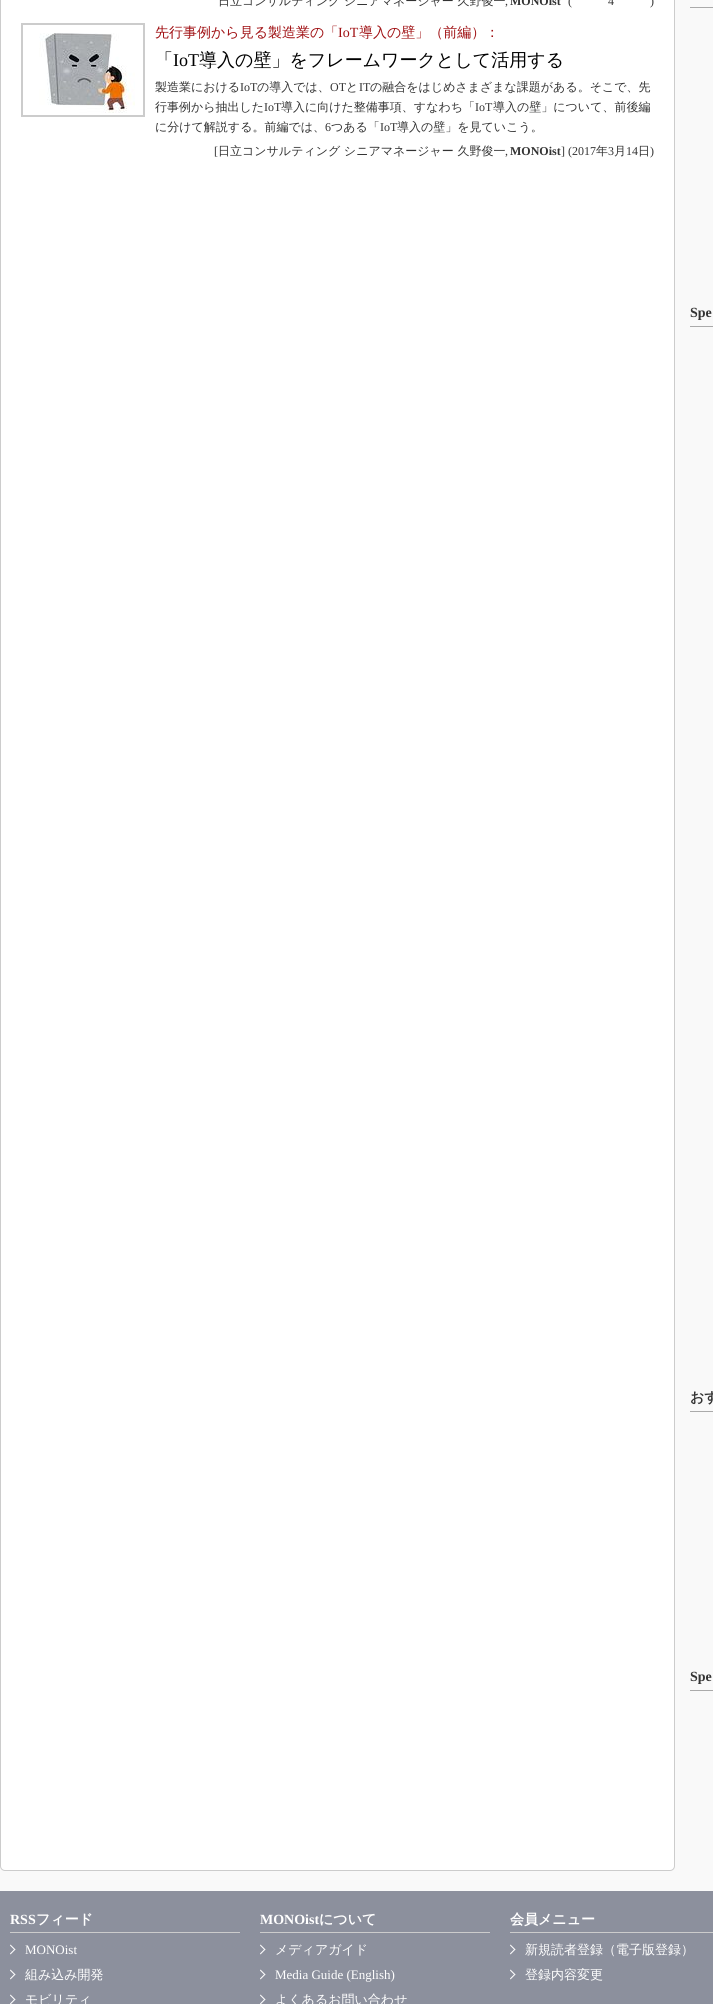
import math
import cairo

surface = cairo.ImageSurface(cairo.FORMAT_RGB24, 713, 2004)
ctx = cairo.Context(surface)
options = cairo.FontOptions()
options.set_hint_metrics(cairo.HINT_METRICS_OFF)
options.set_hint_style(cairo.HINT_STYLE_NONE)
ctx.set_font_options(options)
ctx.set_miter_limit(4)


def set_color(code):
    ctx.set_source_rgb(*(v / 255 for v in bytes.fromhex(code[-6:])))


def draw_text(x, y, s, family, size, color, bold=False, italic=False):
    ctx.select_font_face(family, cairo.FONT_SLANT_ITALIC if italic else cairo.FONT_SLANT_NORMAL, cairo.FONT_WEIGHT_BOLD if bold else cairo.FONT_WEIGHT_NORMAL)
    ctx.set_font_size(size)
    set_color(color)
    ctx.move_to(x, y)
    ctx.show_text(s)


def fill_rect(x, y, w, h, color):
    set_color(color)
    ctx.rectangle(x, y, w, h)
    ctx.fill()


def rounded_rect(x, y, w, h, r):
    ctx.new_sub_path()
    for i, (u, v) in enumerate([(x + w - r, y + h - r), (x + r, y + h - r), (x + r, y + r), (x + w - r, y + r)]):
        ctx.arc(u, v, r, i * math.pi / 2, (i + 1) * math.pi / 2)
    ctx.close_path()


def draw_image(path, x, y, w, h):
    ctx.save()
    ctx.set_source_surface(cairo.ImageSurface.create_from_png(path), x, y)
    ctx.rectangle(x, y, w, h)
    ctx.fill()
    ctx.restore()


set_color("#f9f9f9")
ctx.paint()
set_color("#ffffff")
rounded_rect(0.5, -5.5, 674, 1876, 4.5)
ctx.fill_preserve()
set_color("#cccccc")
ctx.set_line_width(1)
ctx.stroke()
draw_text(218, 5, "日立コンサルティング シニアマネージャー 久野俊一", "WenQuanYi Zen Hei Medium", 12, "#333333")
draw_text(505, 5, ",", "Liberation Serif", 12, "#333333")
draw_text(510, 5, "MONOist", "Liberation Serif", 12, "#333333", bold=True)
draw_text(568, 5, "(", "Liberation Serif", 12, "#333333")
draw_text(608, 5, "4", "Liberation Serif", 12, "#333333")
draw_text(650, 5, ")", "Liberation Serif", 12, "#333333")
ctx.rectangle(21.5, 23.5, 123, 93)
set_color("#cccccc")
ctx.stroke()
ctx.rectangle(22.5, 24.5, 121, 91)
ctx.stroke()
draw_image("assets/img1.png", 39, 33, 96, 80)
draw_text(155, 37, "先行事例から見る製造業の「", "WenQuanYi Zen Hei Medium", 14, "#a01013")
draw_text(338, 37, "IoT", "Liberation Serif", 14, "#a01013")
draw_text(359, 37, "導入の壁」（前編）：", "WenQuanYi Zen Hei Medium", 14, "#a01013")
draw_text(155, 66, "「", "WenQuanYi Zen Hei Medium", 18, "#000000")
draw_text(173, 66, "IoT", "Liberation Serif", 18, "#000000")
draw_text(199, 66, "導入の壁」をフレームワークとして活用する", "WenQuanYi Zen Hei Medium", 18, "#000000")
draw_text(155, 91, "製造業における", "WenQuanYi Zen Hei Medium", 12, "#333333")
draw_text(240, 91, "IoT", "Liberation Serif", 12, "#333333")
draw_text(257, 91, "の導入では、", "WenQuanYi Zen Hei Medium", 12, "#333333")
draw_text(330, 91, "OT", "Liberation Serif", 12, "#333333")
draw_text(346, 91, "と", "WenQuanYi Zen Hei Medium", 12, "#333333")
draw_text(359, 91, "IT", "Liberation Serif", 12, "#333333")
draw_text(370, 91, "の融合をはじめさまざまな課題がある。そこで、先", "WenQuanYi Zen Hei Medium", 12, "#333333")
draw_text(155, 111, "行事例から抽出した", "WenQuanYi Zen Hei Medium", 12, "#333333")
draw_text(264, 111, "IoT", "Liberation Serif", 12, "#333333")
draw_text(281, 111, "導入に向けた整備事項、すなわち「", "WenQuanYi Zen Hei Medium", 12, "#333333")
draw_text(475, 111, "IoT", "Liberation Serif", 12, "#333333")
draw_text(493, 111, "導入の壁」について、前後編", "WenQuanYi Zen Hei Medium", 12, "#333333")
draw_text(155, 131, "に分けて解説する。前編では、", "WenQuanYi Zen Hei Medium", 12, "#333333")
draw_text(325, 131, "6", "Liberation Serif", 12, "#333333")
draw_text(331, 131, "つある「", "WenQuanYi Zen Hei Medium", 12, "#333333")
draw_text(380, 131, "IoT", "Liberation Serif", 12, "#333333")
draw_text(397, 131, "導入の壁」を見ていこう。", "WenQuanYi Zen Hei Medium", 12, "#333333")
draw_text(214, 155, "[", "Liberation Serif", 12, "#333333")
draw_text(218, 155, "日立コンサルティング シニアマネージャー 久野俊一", "WenQuanYi Zen Hei Medium", 12, "#333333")
draw_text(505, 155, ",", "Liberation Serif", 12, "#333333")
draw_text(510, 155, "MONOist", "Liberation Serif", 12, "#333333", bold=True)
draw_text(561, 155, "] (2017", "Liberation Serif", 12, "#333333")
draw_text(596, 155, "年", "WenQuanYi Zen Hei Medium", 12, "#333333")
draw_text(608, 155, "3", "Liberation Serif", 12, "#333333")
draw_text(614, 155, "月", "WenQuanYi Zen Hei Medium", 12, "#333333")
draw_text(626, 155, "14", "Liberation Serif", 12, "#333333")
draw_text(638, 155, "日", "WenQuanYi Zen Hei Medium", 12, "#333333")
draw_text(650, 155, ")", "Liberation Serif", 12, "#333333")
fill_rect(690, 7, 23, 1, "#aaaaaa")
fill_rect(690, 326, 23, 1, "#aaaaaa")
draw_text(690, 317, "Spe", "Liberation Serif", 14, "#333333", bold=True)
fill_rect(690, 1411, 23, 1, "#aaaaaa")
draw_text(690, 1402, "おす", "WenQuanYi Zen Hei", 14, "#333333", bold=True)
fill_rect(690, 1690, 23, 1, "#aaaaaa")
draw_text(690, 1681, "Spe", "Liberation Serif", 14, "#333333", bold=True)
fill_rect(0, 1891, 713, 113, "#8c909d")
fill_rect(10, 1932, 230, 1, "#cccccc")
draw_text(10, 1924, "RSS", "Liberation Serif", 14, "#ffffff", bold=True)
draw_text(36, 1924, "フィード", "WenQuanYi Zen Hei", 14, "#ffffff", bold=True)
ctx.new_path()
ctx.move_to(10, 1945.5)
ctx.line_to(10.5, 1944.5)
ctx.line_to(15.5, 1949.5)
ctx.line_to(14.5, 1950)
ctx.close_path()
ctx.fill()
ctx.new_path()
ctx.move_to(10, 1953.5)
ctx.line_to(14.5, 1949)
ctx.line_to(15.5, 1949.5)
ctx.line_to(10.5, 1954.5)
ctx.close_path()
ctx.fill()
draw_text(25, 1954, "MONOist", "Liberation Serif", 13, "#ffffff")
ctx.new_path()
ctx.move_to(10, 1970.5)
ctx.line_to(10.5, 1969.5)
ctx.line_to(15.5, 1974.5)
ctx.line_to(14.5, 1975)
ctx.close_path()
ctx.fill()
ctx.new_path()
ctx.move_to(10, 1978.5)
ctx.line_to(14.5, 1974)
ctx.line_to(15.5, 1974.5)
ctx.line_to(10.5, 1979.5)
ctx.close_path()
ctx.fill()
draw_text(25, 1979, "組み込み開発", "WenQuanYi Zen Hei Medium", 13, "#ffffff")
ctx.new_path()
ctx.move_to(10, 1995.5)
ctx.line_to(10.5, 1994.5)
ctx.line_to(15.5, 1999.5)
ctx.line_to(14.5, 2000)
ctx.close_path()
ctx.fill()
ctx.new_path()
ctx.move_to(10, 2003.5)
ctx.line_to(14.5, 1999)
ctx.line_to(15.5, 1999.5)
ctx.line_to(10.5, 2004.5)
ctx.close_path()
ctx.fill()
draw_text(25, 2004, "モビリティ", "WenQuanYi Zen Hei Medium", 13, "#ffffff")
fill_rect(260, 1932, 230, 1, "#cccccc")
draw_text(260, 1924, "MONOist", "Liberation Serif", 14, "#ffffff", bold=True)
draw_text(319, 1924, "について", "WenQuanYi Zen Hei", 14, "#ffffff", bold=True)
ctx.new_path()
ctx.move_to(260, 1945.5)
ctx.line_to(260.5, 1944.5)
ctx.line_to(265.5, 1949.5)
ctx.line_to(264.5, 1950)
ctx.close_path()
ctx.fill()
ctx.new_path()
ctx.move_to(260, 1953.5)
ctx.line_to(264.5, 1949)
ctx.line_to(265.5, 1949.5)
ctx.line_to(260.5, 1954.5)
ctx.close_path()
ctx.fill()
draw_text(275, 1954, "メディアガイド", "WenQuanYi Zen Hei Medium", 13, "#ffffff")
ctx.new_path()
ctx.move_to(260, 1970.5)
ctx.line_to(260.5, 1969.5)
ctx.line_to(265.5, 1974.5)
ctx.line_to(264.5, 1975)
ctx.close_path()
ctx.fill()
ctx.new_path()
ctx.move_to(260, 1978.5)
ctx.line_to(264.5, 1974)
ctx.line_to(265.5, 1974.5)
ctx.line_to(260.5, 1979.5)
ctx.close_path()
ctx.fill()
draw_text(275, 1979, "Media Guide (English)", "Liberation Serif", 13, "#ffffff")
ctx.new_path()
ctx.move_to(260, 1995.5)
ctx.line_to(260.5, 1994.5)
ctx.line_to(265.5, 1999.5)
ctx.line_to(264.5, 2000)
ctx.close_path()
ctx.fill()
ctx.new_path()
ctx.move_to(260, 2003.5)
ctx.line_to(264.5, 1999)
ctx.line_to(265.5, 1999.5)
ctx.line_to(260.5, 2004.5)
ctx.close_path()
ctx.fill()
draw_text(275, 2004, "よくあるお問い合わせ", "WenQuanYi Zen Hei Medium", 13, "#ffffff")
fill_rect(510, 1932, 203, 1, "#cccccc")
draw_text(510, 1924, "会員メニュー", "WenQuanYi Zen Hei", 14, "#ffffff", bold=True)
ctx.new_path()
ctx.move_to(510, 1945.5)
ctx.line_to(510.5, 1944.5)
ctx.line_to(515.5, 1949.5)
ctx.line_to(514.5, 1950)
ctx.close_path()
ctx.fill()
ctx.new_path()
ctx.move_to(510, 1953.5)
ctx.line_to(514.5, 1949)
ctx.line_to(515.5, 1949.5)
ctx.line_to(510.5, 1954.5)
ctx.close_path()
ctx.fill()
draw_text(525, 1954, "新規読者登録（電子版登録）", "WenQuanYi Zen Hei Medium", 13, "#ffffff")
ctx.new_path()
ctx.move_to(510, 1970.5)
ctx.line_to(510.5, 1969.5)
ctx.line_to(515.5, 1974.5)
ctx.line_to(514.5, 1975)
ctx.close_path()
ctx.fill()
ctx.new_path()
ctx.move_to(510, 1978.5)
ctx.line_to(514.5, 1974)
ctx.line_to(515.5, 1974.5)
ctx.line_to(510.5, 1979.5)
ctx.close_path()
ctx.fill()
draw_text(525, 1979, "登録内容変更", "WenQuanYi Zen Hei Medium", 13, "#ffffff")
surface.write_to_png("output.png")
